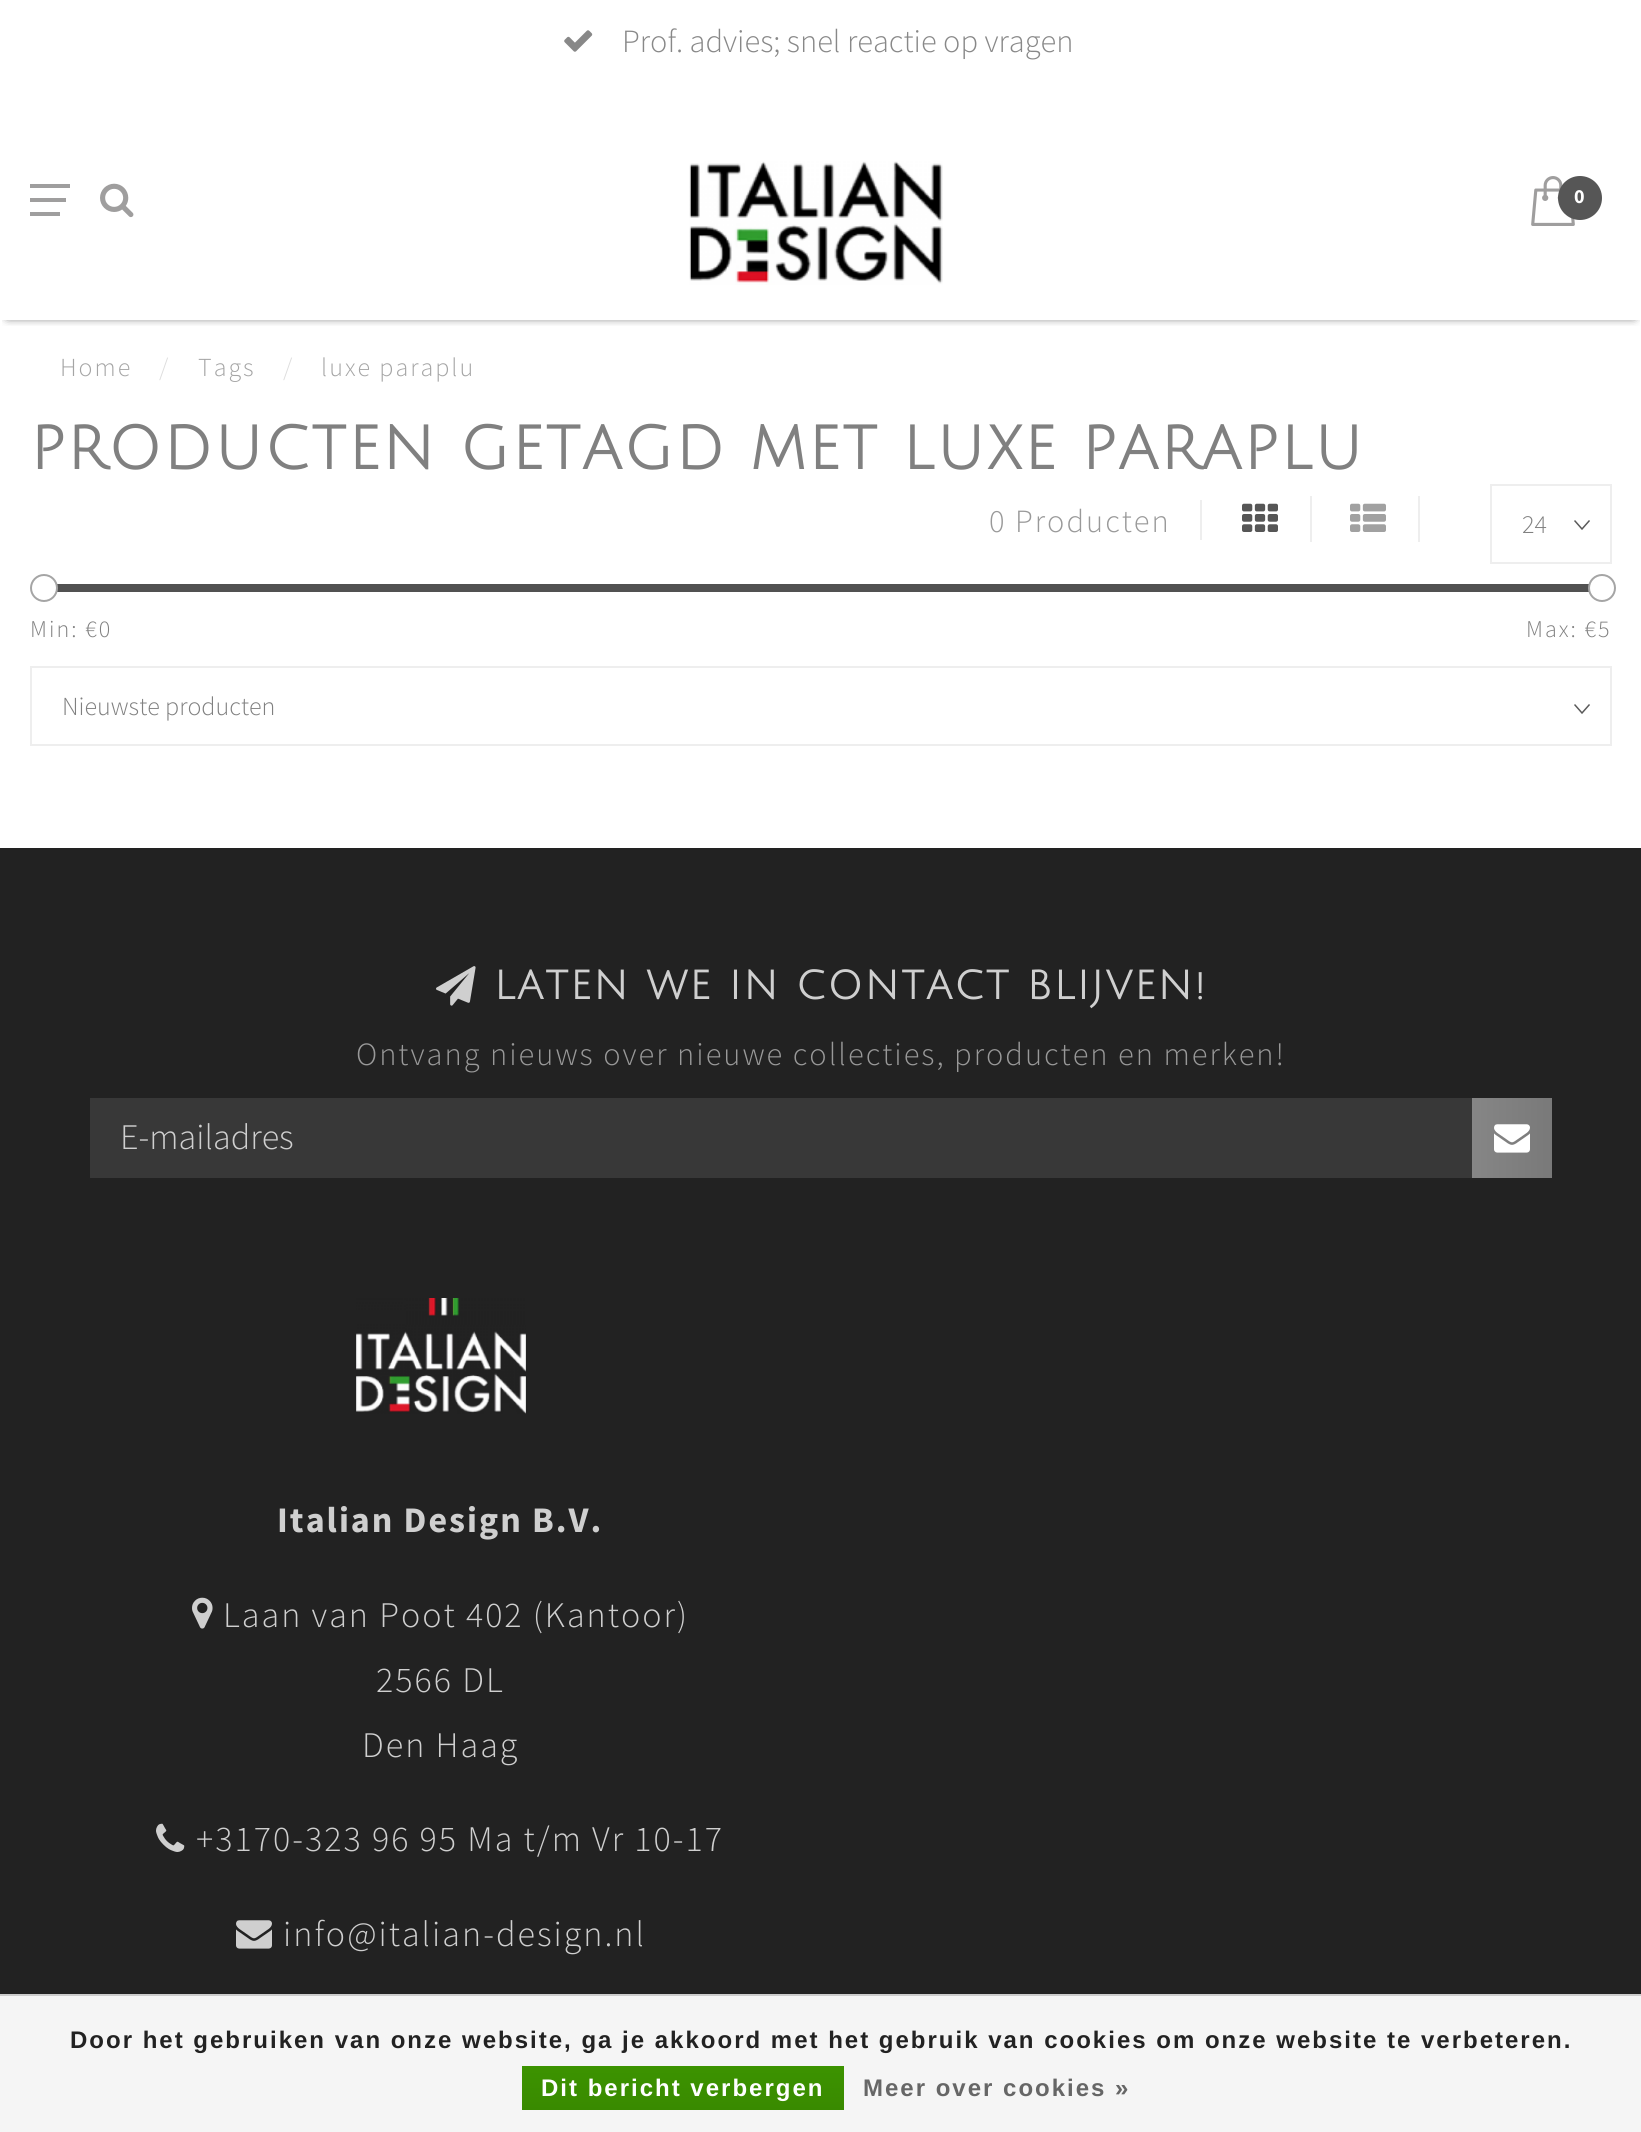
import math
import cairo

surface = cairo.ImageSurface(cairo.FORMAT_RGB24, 1641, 2132)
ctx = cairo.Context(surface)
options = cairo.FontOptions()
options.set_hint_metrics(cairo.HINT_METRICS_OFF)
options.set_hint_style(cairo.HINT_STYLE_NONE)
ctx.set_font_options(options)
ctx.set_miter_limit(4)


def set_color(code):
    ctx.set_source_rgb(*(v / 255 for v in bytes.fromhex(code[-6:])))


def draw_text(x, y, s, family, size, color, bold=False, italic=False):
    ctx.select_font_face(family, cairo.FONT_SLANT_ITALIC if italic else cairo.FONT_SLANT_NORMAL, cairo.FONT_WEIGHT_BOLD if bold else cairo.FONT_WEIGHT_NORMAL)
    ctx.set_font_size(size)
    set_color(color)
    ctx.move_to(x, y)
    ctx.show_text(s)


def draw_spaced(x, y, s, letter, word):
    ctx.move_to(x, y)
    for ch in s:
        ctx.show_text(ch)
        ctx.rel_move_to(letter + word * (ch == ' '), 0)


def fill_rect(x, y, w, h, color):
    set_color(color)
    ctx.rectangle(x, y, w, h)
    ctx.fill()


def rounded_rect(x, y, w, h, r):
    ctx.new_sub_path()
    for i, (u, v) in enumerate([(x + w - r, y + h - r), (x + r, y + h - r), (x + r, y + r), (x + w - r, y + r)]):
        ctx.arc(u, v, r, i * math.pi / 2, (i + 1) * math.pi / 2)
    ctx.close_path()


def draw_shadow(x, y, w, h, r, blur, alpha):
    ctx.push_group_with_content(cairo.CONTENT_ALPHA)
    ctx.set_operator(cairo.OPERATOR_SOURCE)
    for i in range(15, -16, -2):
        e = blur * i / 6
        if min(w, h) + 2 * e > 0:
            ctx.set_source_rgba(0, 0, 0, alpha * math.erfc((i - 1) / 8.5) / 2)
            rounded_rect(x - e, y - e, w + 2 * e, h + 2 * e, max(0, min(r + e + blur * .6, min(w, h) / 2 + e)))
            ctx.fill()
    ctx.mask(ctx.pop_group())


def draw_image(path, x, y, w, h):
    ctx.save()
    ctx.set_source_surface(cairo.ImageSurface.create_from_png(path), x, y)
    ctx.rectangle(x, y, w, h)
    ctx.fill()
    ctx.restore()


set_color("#ffffff")
ctx.paint()
draw_image("assets/img1.png", 564, 30, 29, 22)
draw_text(622, 52, "Prof. advies; snel reactie op vragen", "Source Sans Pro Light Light", 32.4, "#888888")
ctx.save()
ctx.rectangle(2, 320, 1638, 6)
ctx.clip()
set_color("#000000")
draw_shadow(8, 92, 1626, 224, 0, 5, 1)
ctx.restore()
fill_rect(30, 184, 40, 4, "#9f9e9e")
fill_rect(30, 198, 36, 4, "#9f9e9e")
fill_rect(30, 212, 30, 4, "#9f9e9e")
draw_image("assets/img2.png", 100, 183, 34, 35)
draw_image("assets/img3.png", 689, 161, 254, 124)
draw_image("assets/img4.png", 1531, 176, 44, 50)
set_color("#565656")
ctx.arc(1580, 198, 22, 0, 2 * math.pi)
ctx.fill()
ctx.select_font_face("Source Sans Pro", cairo.FONT_SLANT_NORMAL, cairo.FONT_WEIGHT_BOLD)
ctx.set_font_size(20)
set_color("#ffffff")
draw_spaced(1574, 203, "0", 2, 0)
ctx.select_font_face("Source Sans Pro Light Light")
ctx.set_font_size(26)
set_color("#a5a5a5")
draw_spaced(60, 376, "Home", 2, 0)
set_color("#dddddd")
draw_spaced(159, 376, "/", 2, 0)
set_color("#a5a5a5")
draw_spaced(198, 376, "Tags", 2, 0)
set_color("#dddddd")
draw_spaced(283, 376, "/", 2, 0)
set_color("#a5a5a5")
draw_spaced(321, 376, "luxe paraplu", 2, 0)
ctx.select_font_face("Julius Sans One", cairo.FONT_SLANT_NORMAL, cairo.FONT_WEIGHT_BOLD)
ctx.set_font_size(60)
set_color("#808080")
draw_spaced(30, 469, "PRODUCTEN GETAGD MET LUXE PARAPLU", 2, 0)
ctx.select_font_face("Source Sans Pro Light Light")
ctx.set_font_size(32.4)
set_color("#999999")
draw_spaced(989, 532, "0 Producten", 2, 0)
fill_rect(1200, 500, 2, 40, "#eeeeee")
fill_rect(1310, 496, 2, 46, "#eeeeee")
draw_image("assets/img5.png", 1242, 503, 36, 29)
fill_rect(1418, 496, 2, 46, "#eeeeee")
draw_image("assets/img6.png", 1350, 503, 36, 29)
ctx.new_path()
ctx.move_to(1589.5, 520.5)
ctx.line_to(1582, 529)
ctx.line_to(1574.5, 520.5)
set_color("#595959")
ctx.set_line_width(1.5)
ctx.stroke()
ctx.rectangle(1491, 485, 120, 78)
set_color("#eeeeee")
ctx.set_line_width(2)
ctx.stroke()
draw_text(1522, 533, "24", "Source Sans Pro Light Light", 26, "#808080")
fill_rect(50, 584, 1539, 8, "#515151")
set_color("#ffffff")
ctx.new_path()
ctx.arc(44, 588, 13, 0, 2 * math.pi)
ctx.fill_preserve()
set_color("#a5a5a5")
ctx.stroke()
set_color("#ffffff")
ctx.arc(1602, 588, 13, 0, 2 * math.pi)
ctx.fill_preserve()
set_color("#a5a5a5")
ctx.stroke()
ctx.set_font_size(24)
set_color("#808080")
draw_spaced(30, 637, "Min: €0", 2, 0)
draw_spaced(1526, 637, "Max: €5", 2, 0)
ctx.new_path()
ctx.move_to(1589.5, 704.5)
ctx.line_to(1582, 713)
ctx.line_to(1574.5, 704.5)
set_color("#595959")
ctx.set_line_width(1.5)
ctx.stroke()
ctx.rectangle(31, 667, 1580, 78)
set_color("#eeeeee")
ctx.set_line_width(2)
ctx.stroke()
draw_text(62, 715, "Nieuwste producten", "Source Sans Pro Light Light", 26, "#808080")
fill_rect(0, 848, 1641, 1146, "#222222")
draw_image("assets/img7.png", 436, 966, 40, 40)
ctx.select_font_face("Julius Sans One", cairo.FONT_SLANT_NORMAL, cairo.FONT_WEIGHT_BOLD)
ctx.set_font_size(39.6)
set_color("#cfcfcf")
draw_spaced(494, 999, "LATEN WE IN CONTACT BLIJVEN!", 2, 0)
ctx.select_font_face("Source Sans Pro Light Light")
ctx.set_font_size(32.4)
set_color("#999999")
draw_spaced(356, 1065, "Ontvang nieuws over nieuwe collecties, producten en merken!", 2, 0)
fill_rect(90, 1098, 1382, 80, "#383838")
draw_text(120, 1149, "E-mailadres", "Source Sans Pro Light Light", 36, "#cfcfcf")
gradient = cairo.LinearGradient(1472, 1138, 1552, 1138)
gradient.add_color_stop_rgba(0, 0.525, 0.525, 0.525, 1)
gradient.add_color_stop_rgba(1, 0.475, 0.475, 0.475, 1)
ctx.set_source(gradient)
ctx.rectangle(1472, 1098, 80, 80)
ctx.fill()
draw_image("assets/img8.png", 1494, 1124, 36, 29)
draw_image("assets/img9.png", 356, 1298, 170, 116)
ctx.select_font_face("Source Sans Pro", cairo.FONT_SLANT_NORMAL, cairo.FONT_WEIGHT_BOLD)
set_color("#cfcfcf")
draw_spaced(277, 1532, "Italian Design B.V.", 2, 0)
draw_image("assets/img10.png", 192, 1597, 21, 32)
ctx.select_font_face("Source Sans Pro Light Light")
draw_spaced(223, 1627, "Laan van Poot 402 (Kantoor)", 2, 0)
draw_spaced(376, 1692, "2566 DL", 2, 0)
draw_spaced(362, 1757, "Den Haag", 2, 0)
draw_image("assets/img11.png", 156, 1823, 29, 29)
draw_spaced(196, 1851, "+3170-323 96 95 Ma t/m Vr 10-17", 2, 0)
draw_image("assets/img12.png", 236, 1920, 36, 29)
draw_spaced(283, 1946, "info@italian-design.nl", 2, 0)
fill_rect(0, 1996, 1641, 136, "#f5f5f5")
fill_rect(0, 1994, 1641, 2, "#cccccc")
ctx.select_font_face("Liberation Sans", cairo.FONT_SLANT_NORMAL, cairo.FONT_WEIGHT_BOLD)
ctx.set_font_size(24)
set_color("#222222")
draw_spaced(70, 2048, "Door het gebruiken van onze website, ga je akkoord met het gebruik van cookies om onze website te verbeteren.", 2, 0)
gradient = cairo.LinearGradient(683, 2066, 683, 2110)
gradient.add_color_stop_rgba(0, 0.235, 0.576, 0, 1)
gradient.add_color_stop_rgba(1, 0.224, 0.541, 0, 1)
ctx.set_source(gradient)
ctx.rectangle(522, 2066, 322, 44)
ctx.fill()
set_color("#ffffff")
draw_spaced(541, 2096, "Dit bericht verbergen", 2, 0)
set_color("#666666")
draw_spaced(863, 2096, "Meer over cookies »", 2, 0)
surface.write_to_png("output.png")
